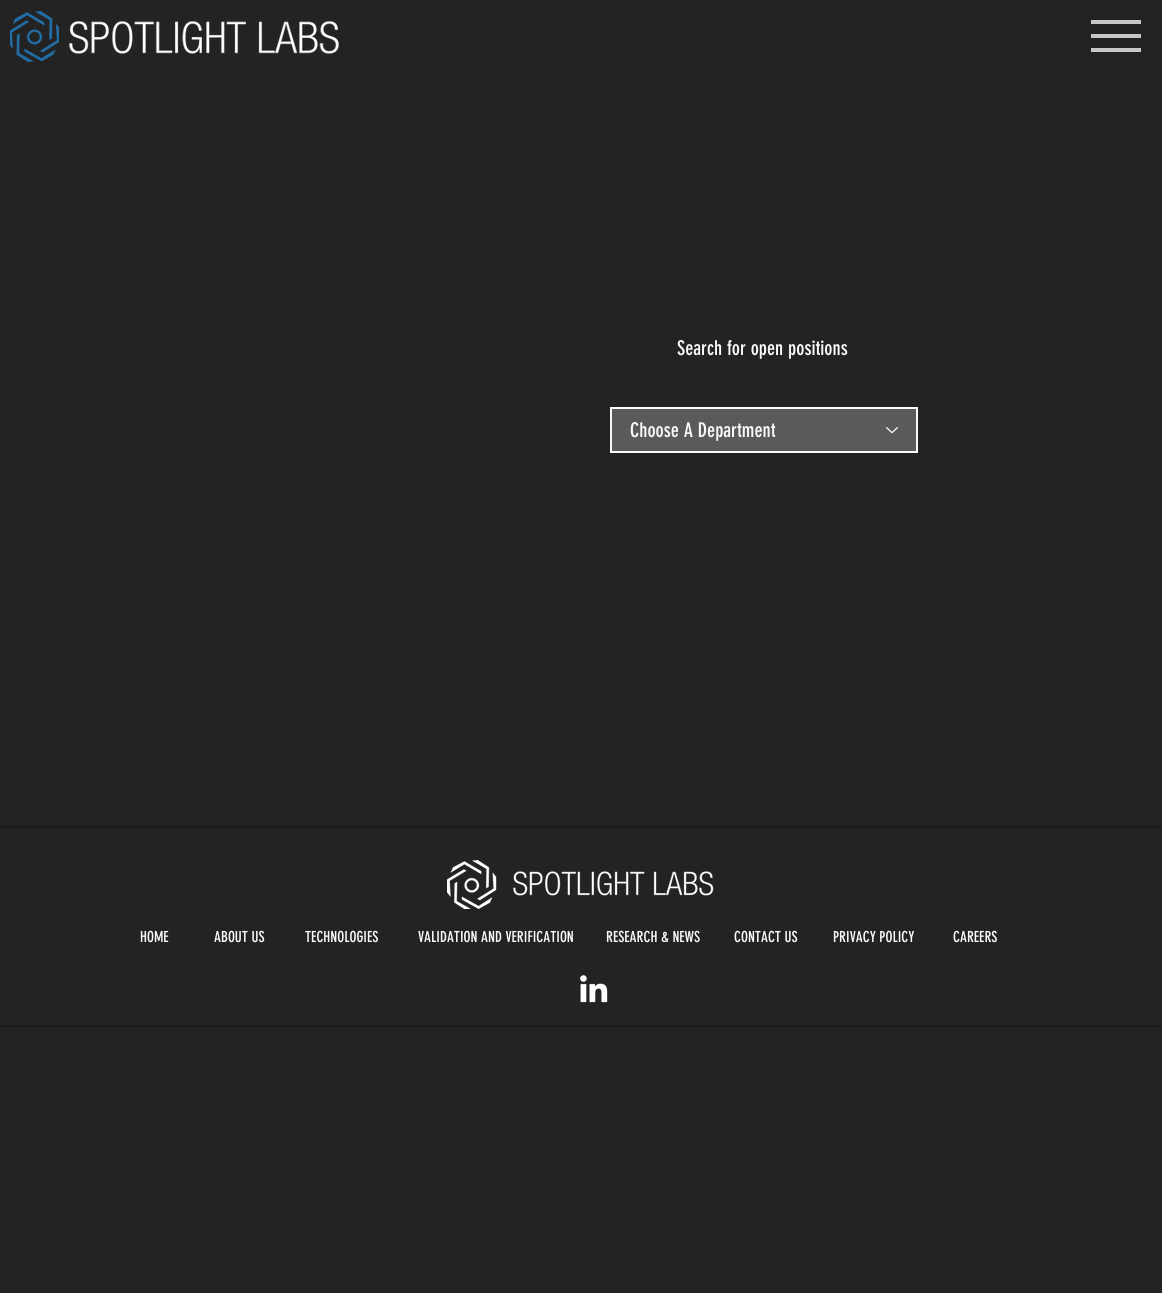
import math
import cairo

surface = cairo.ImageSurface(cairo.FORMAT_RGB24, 1162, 1293)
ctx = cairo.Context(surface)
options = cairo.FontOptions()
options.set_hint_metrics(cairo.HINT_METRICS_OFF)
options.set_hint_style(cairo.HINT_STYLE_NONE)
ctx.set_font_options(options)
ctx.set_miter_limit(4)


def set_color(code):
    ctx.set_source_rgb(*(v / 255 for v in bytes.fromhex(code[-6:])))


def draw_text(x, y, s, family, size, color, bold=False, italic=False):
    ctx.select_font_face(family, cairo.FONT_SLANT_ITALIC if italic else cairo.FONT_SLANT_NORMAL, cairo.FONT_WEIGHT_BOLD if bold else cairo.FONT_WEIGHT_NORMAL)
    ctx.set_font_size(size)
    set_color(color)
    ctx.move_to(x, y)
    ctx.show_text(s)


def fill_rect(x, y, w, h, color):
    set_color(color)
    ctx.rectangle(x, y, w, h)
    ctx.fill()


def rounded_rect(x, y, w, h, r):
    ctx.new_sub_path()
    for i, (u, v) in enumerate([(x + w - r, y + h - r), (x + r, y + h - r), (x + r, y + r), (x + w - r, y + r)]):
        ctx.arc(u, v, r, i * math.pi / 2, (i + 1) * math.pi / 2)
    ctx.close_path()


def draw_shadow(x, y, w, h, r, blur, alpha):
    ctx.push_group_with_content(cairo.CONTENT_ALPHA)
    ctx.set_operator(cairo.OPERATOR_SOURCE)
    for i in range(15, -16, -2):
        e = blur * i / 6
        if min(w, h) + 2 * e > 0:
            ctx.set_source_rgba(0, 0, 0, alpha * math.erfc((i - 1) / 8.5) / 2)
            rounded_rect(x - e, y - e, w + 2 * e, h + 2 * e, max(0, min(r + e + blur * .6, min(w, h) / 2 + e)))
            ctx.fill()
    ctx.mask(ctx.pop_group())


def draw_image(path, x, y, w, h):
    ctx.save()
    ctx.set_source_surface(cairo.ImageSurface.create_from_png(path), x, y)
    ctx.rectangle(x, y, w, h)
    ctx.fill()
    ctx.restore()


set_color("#242323")
ctx.paint()
draw_image("assets/img1.png", 10, 11, 49, 51)
fill_rect(1091, 48, 50, 4, "#c8c8c8")
fill_rect(1091, 20, 50, 4, "#c8c8c8")
fill_rect(1091, 34, 50, 4, "#c8c8c8")
draw_image("assets/img2.png", 67, 19, 272, 35)
draw_text(677, 355, "Search for open positions", "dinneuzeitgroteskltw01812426", 20, "#fafafa")
set_color("#5b5a5a")
ctx.rectangle(611, 408, 306, 44)
ctx.fill_preserve()
set_color("#fafafa")
ctx.stroke()
draw_text(630, 437, "Choose A Department", "dinneuzeitgroteskltw01812426", 20, "#fafafa")
draw_image("assets/img3.png", 886, 427, 12, 7)
ctx.save()
ctx.set_fill_rule(cairo.FILL_RULE_EVEN_ODD)
ctx.new_path()
ctx.move_to(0, 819)
ctx.line_to(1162, 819)
ctx.line_to(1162, 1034)
ctx.line_to(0, 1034)
ctx.close_path()
ctx.move_to(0, 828)
ctx.line_to(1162, 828)
ctx.line_to(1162, 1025)
ctx.line_to(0, 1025)
ctx.close_path()
ctx.clip()
set_color("#000000")
draw_shadow(0, 828, 1162, 197, 0, 2.5, 0.7)
ctx.restore()
draw_image("assets/img4.png", 447, 860, 267, 49)
draw_text(140, 942, "HOME", "dinneuzeitgroteskltw01812426", 15, "#fafafa")
draw_text(214, 942, "ABOUT US", "dinneuzeitgroteskltw01812426", 15, "#fafafa")
draw_text(305, 942, "TECHNOLOGIES", "dinneuzeitgroteskltw01812426", 15, "#fafafa")
draw_text(418, 942, "VALIDATION AND VERIFICATION", "dinneuzeitgroteskltw01812426", 15, "#fafafa")
draw_text(606, 942, "RESEARCH & NEWS", "dinneuzeitgroteskltw01812426", 15, "#fafafa")
draw_text(734, 942, "CONTACT US", "dinneuzeitgroteskltw01812426", 15, "#fafafa")
draw_text(833, 942, "PRIVACY POLICY", "dinneuzeitgroteskltw01812426", 15, "#fafafa")
draw_text(953, 942, "CAREERS", "dinneuzeitgroteskltw01812426", 15, "#fafafa")
draw_image("assets/img5.png", 580, 975, 28, 28)
surface.write_to_png("output.png")
